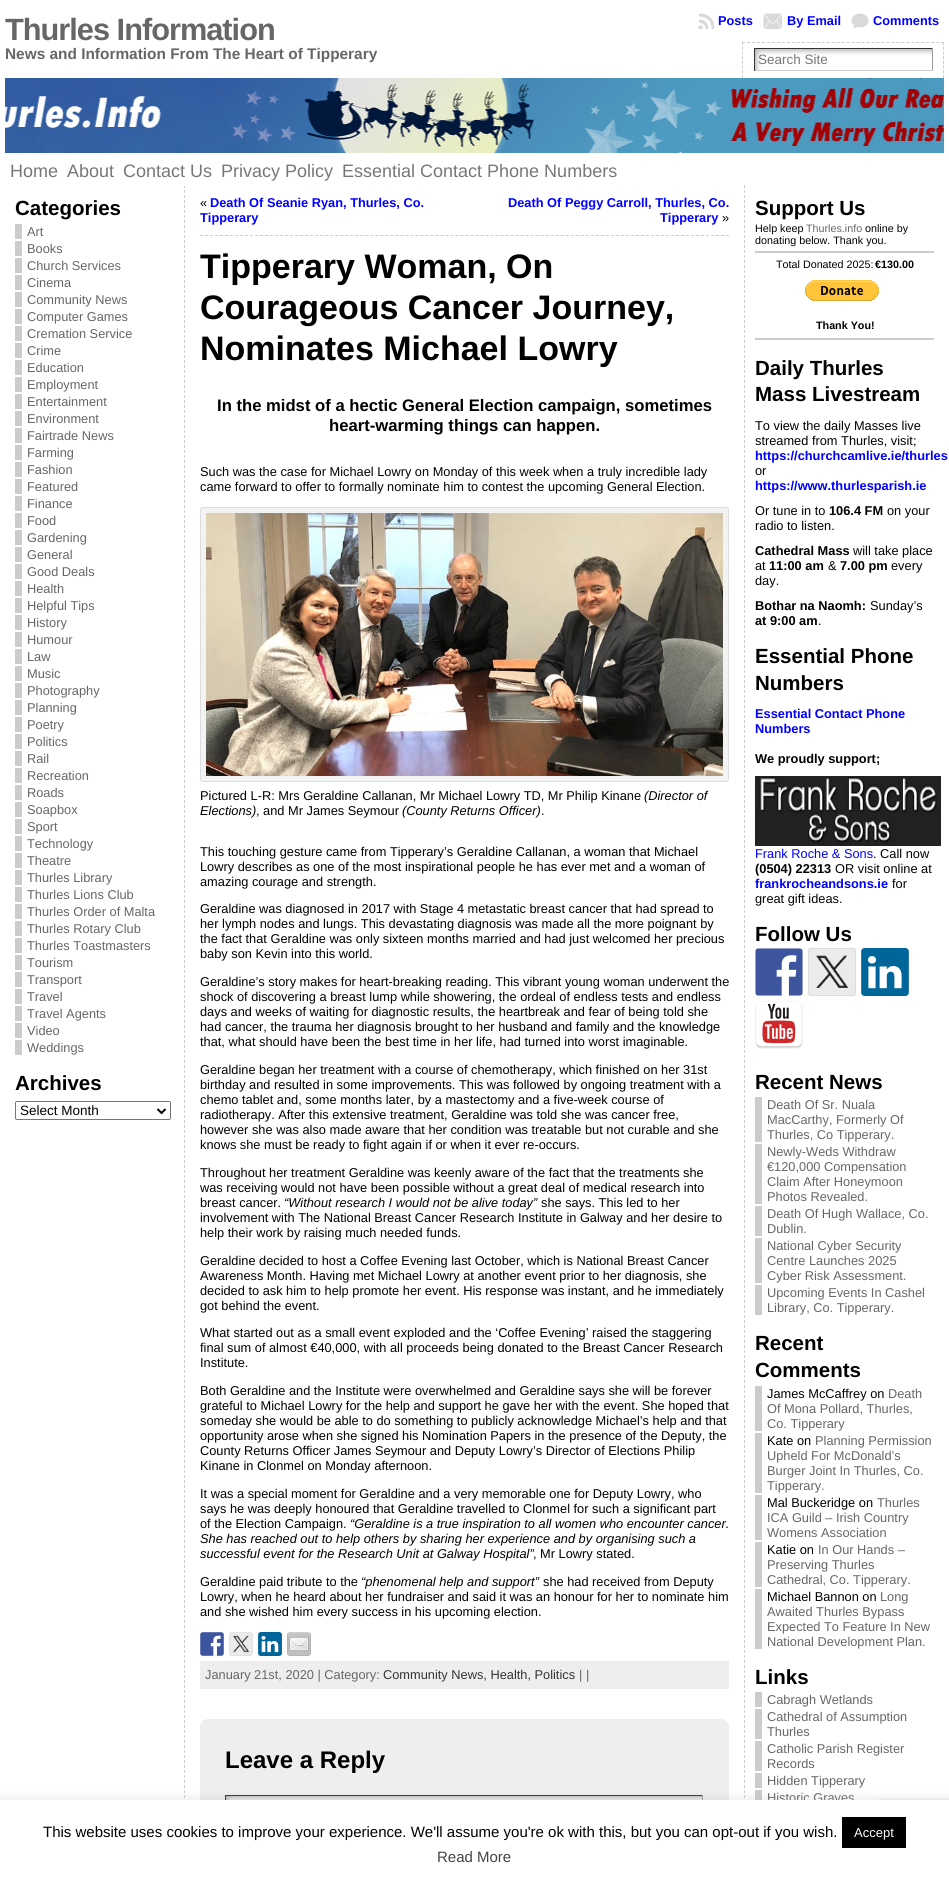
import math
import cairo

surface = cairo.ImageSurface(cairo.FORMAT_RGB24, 949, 1877)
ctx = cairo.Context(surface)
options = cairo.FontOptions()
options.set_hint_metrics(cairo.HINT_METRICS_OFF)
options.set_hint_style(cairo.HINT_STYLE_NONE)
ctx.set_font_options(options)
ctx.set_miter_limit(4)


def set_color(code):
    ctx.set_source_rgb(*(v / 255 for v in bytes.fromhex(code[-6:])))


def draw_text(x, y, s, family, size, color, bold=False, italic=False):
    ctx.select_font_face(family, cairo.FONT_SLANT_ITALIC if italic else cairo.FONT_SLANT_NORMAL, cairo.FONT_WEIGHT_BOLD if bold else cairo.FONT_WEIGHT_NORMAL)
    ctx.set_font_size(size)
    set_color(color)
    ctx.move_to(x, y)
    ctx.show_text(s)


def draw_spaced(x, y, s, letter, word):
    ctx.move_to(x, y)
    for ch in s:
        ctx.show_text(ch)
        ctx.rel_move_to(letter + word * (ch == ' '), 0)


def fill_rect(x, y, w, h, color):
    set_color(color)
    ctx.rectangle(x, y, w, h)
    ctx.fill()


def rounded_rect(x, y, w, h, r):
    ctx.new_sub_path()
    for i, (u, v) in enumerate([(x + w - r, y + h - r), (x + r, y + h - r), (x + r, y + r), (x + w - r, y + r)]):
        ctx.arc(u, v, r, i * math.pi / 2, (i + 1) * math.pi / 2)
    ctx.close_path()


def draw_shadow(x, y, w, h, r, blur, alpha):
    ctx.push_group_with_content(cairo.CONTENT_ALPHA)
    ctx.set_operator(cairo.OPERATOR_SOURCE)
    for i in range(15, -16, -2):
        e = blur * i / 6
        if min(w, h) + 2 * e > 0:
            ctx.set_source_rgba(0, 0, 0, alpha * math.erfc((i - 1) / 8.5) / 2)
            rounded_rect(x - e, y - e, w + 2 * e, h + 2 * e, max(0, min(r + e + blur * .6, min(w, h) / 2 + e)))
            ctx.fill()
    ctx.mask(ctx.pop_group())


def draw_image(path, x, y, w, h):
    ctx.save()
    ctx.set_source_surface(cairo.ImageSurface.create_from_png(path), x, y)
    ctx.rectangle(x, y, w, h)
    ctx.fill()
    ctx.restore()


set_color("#ffffff")
ctx.paint()
ctx.select_font_face("Liberation Sans", cairo.FONT_SLANT_NORMAL, cairo.FONT_WEIGHT_BOLD)
ctx.set_font_size(30.75)
set_color("#666666")
draw_spaced(5, 40, "Thurles Information", -1, 0)
draw_text(5, 59, "News and Information From The Heart of Tipperary", "Liberation Sans", 15.4, "#666666", bold=True)
draw_image("assets/img1.png", 698, 13, 16, 16)
draw_text(718, 25, "Posts", "Liberation Sans", 12.8, "#0000ff", bold=True)
draw_image("assets/img2.png", 763, 13, 19, 16)
draw_text(787, 25, "By Email", "Liberation Sans", 12.8, "#0000ff", bold=True)
draw_image("assets/img3.png", 851, 13, 18, 16)
draw_text(873, 25, "Comments", "Liberation Sans", 12.8, "#0000ff", bold=True)
ctx.new_path()
ctx.move_to(742, 42.5)
ctx.line_to(944, 42.5)
set_color("#cccccc")
ctx.set_line_width(1)
ctx.set_dash([3, 1.98])
ctx.stroke()
ctx.new_path()
ctx.move_to(943.5, 42)
ctx.line_to(943.5, 78)
ctx.set_dash([3, 1.71])
ctx.stroke()
ctx.new_path()
ctx.move_to(742.5, 42)
ctx.line_to(742.5, 78)
ctx.stroke()
draw_image("assets/img4.png", 755, 49, 177, 21)
fill_rect(754, 48, 179, 1, "#333333")
fill_rect(932, 48, 1, 23, "#999999")
fill_rect(754, 70, 179, 1, "#cccccc")
fill_rect(754, 48, 1, 23, "#333333")
draw_text(758, 64, "Search Site", "Liberation Sans", 13.5, "#777777")
draw_image("assets/img5.png", 5, 78, 939, 75)
draw_text(10, 177, "Home", "Liberation Sans", 18, "#777777")
draw_text(67, 177, "About", "Liberation Sans", 18, "#777777")
ctx.new_path()
ctx.move_to(184.5, 185)
ctx.line_to(184.5, 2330)
set_color("#cccccc")
ctx.set_dash([3, 2])
ctx.stroke()
fill_rect(184, 185, 1, 1, "#ffffff")
draw_text(123, 177, "Contact Us", "Liberation Sans", 18, "#777777")
draw_text(221, 177, "Privacy Policy", "Liberation Sans", 18, "#777777")
draw_text(342, 177, "Essential Contact Phone Numbers", "Liberation Sans", 18, "#777777")
draw_text(15, 215, "Categories", "Liberation Sans", 20.5, "#000000", bold=True)
draw_text(27, 236, "Art", "Liberation Sans", 12.8, "#666666")
fill_rect(15, 224, 7, 15, "#cccccc")
draw_text(27, 253, "Books", "Liberation Sans", 12.8, "#666666")
fill_rect(15, 241, 7, 15, "#cccccc")
draw_text(27, 270, "Church Services", "Liberation Sans", 12.8, "#666666")
fill_rect(15, 258, 7, 15, "#cccccc")
draw_text(27, 287, "Cinema", "Liberation Sans", 12.8, "#666666")
fill_rect(15, 275, 7, 15, "#cccccc")
draw_text(27, 304, "Community News", "Liberation Sans", 12.8, "#666666")
fill_rect(15, 292, 7, 15, "#cccccc")
draw_text(27, 321, "Computer Games", "Liberation Sans", 12.8, "#666666")
fill_rect(15, 309, 7, 15, "#cccccc")
draw_text(27, 338, "Cremation Service", "Liberation Sans", 12.8, "#666666")
fill_rect(15, 326, 7, 15, "#cccccc")
draw_text(27, 355, "Crime", "Liberation Sans", 12.8, "#666666")
fill_rect(15, 343, 7, 15, "#cccccc")
draw_text(27, 372, "Education", "Liberation Sans", 12.8, "#666666")
fill_rect(15, 360, 7, 15, "#cccccc")
draw_text(27, 389, "Employment", "Liberation Sans", 12.8, "#666666")
fill_rect(15, 377, 7, 15, "#cccccc")
draw_text(27, 406, "Entertainment", "Liberation Sans", 12.8, "#666666")
fill_rect(15, 394, 7, 15, "#cccccc")
draw_text(27, 423, "Environment", "Liberation Sans", 12.8, "#666666")
fill_rect(15, 411, 7, 15, "#cccccc")
draw_text(27, 440, "Fairtrade News", "Liberation Sans", 12.8, "#666666")
fill_rect(15, 428, 7, 15, "#cccccc")
draw_text(27, 457, "Farming", "Liberation Sans", 12.8, "#666666")
fill_rect(15, 445, 7, 15, "#cccccc")
draw_text(27, 474, "Fashion", "Liberation Sans", 12.8, "#666666")
fill_rect(15, 462, 7, 15, "#cccccc")
draw_text(27, 491, "Featured", "Liberation Sans", 12.8, "#666666")
fill_rect(15, 479, 7, 15, "#cccccc")
draw_text(27, 508, "Finance", "Liberation Sans", 12.8, "#666666")
fill_rect(15, 496, 7, 15, "#cccccc")
draw_text(27, 525, "Food", "Liberation Sans", 12.8, "#666666")
fill_rect(15, 513, 7, 15, "#cccccc")
draw_text(27, 542, "Gardening", "Liberation Sans", 12.8, "#666666")
fill_rect(15, 530, 7, 15, "#cccccc")
draw_text(27, 559, "General", "Liberation Sans", 12.8, "#666666")
fill_rect(15, 547, 7, 15, "#cccccc")
draw_text(27, 576, "Good Deals", "Liberation Sans", 12.8, "#666666")
fill_rect(15, 564, 7, 15, "#cccccc")
draw_text(27, 593, "Health", "Liberation Sans", 12.8, "#666666")
fill_rect(15, 581, 7, 15, "#cccccc")
draw_text(27, 610, "Helpful Tips", "Liberation Sans", 12.8, "#666666")
fill_rect(15, 598, 7, 15, "#cccccc")
draw_text(27, 627, "History", "Liberation Sans", 12.8, "#666666")
fill_rect(15, 615, 7, 15, "#cccccc")
draw_text(27, 644, "Humour", "Liberation Sans", 12.8, "#666666")
fill_rect(15, 632, 7, 15, "#cccccc")
draw_text(27, 661, "Law", "Liberation Sans", 12.8, "#666666")
fill_rect(15, 649, 7, 15, "#cccccc")
draw_text(27, 678, "Music", "Liberation Sans", 12.8, "#666666")
fill_rect(15, 666, 7, 15, "#cccccc")
draw_text(27, 695, "Photography", "Liberation Sans", 12.8, "#666666")
fill_rect(15, 683, 7, 15, "#cccccc")
draw_text(27, 712, "Planning", "Liberation Sans", 12.8, "#666666")
fill_rect(15, 700, 7, 15, "#cccccc")
draw_text(27, 729, "Poetry", "Liberation Sans", 12.8, "#666666")
fill_rect(15, 717, 7, 15, "#cccccc")
draw_text(27, 746, "Politics", "Liberation Sans", 12.8, "#666666")
fill_rect(15, 734, 7, 15, "#cccccc")
draw_text(27, 763, "Rail", "Liberation Sans", 12.8, "#666666")
fill_rect(15, 751, 7, 15, "#cccccc")
draw_text(27, 780, "Recreation", "Liberation Sans", 12.8, "#666666")
fill_rect(15, 768, 7, 15, "#cccccc")
draw_text(27, 797, "Roads", "Liberation Sans", 12.8, "#666666")
fill_rect(15, 785, 7, 15, "#cccccc")
draw_text(27, 814, "Soapbox", "Liberation Sans", 12.8, "#666666")
fill_rect(15, 802, 7, 15, "#cccccc")
draw_text(27, 831, "Sport", "Liberation Sans", 12.8, "#666666")
fill_rect(15, 819, 7, 15, "#cccccc")
draw_text(27, 848, "Technology", "Liberation Sans", 12.8, "#666666")
fill_rect(15, 836, 7, 15, "#cccccc")
draw_text(27, 865, "Theatre", "Liberation Sans", 12.8, "#666666")
fill_rect(15, 853, 7, 15, "#cccccc")
draw_text(27, 882, "Thurles Library", "Liberation Sans", 12.8, "#666666")
fill_rect(15, 870, 7, 15, "#cccccc")
draw_text(27, 899, "Thurles Lions Club", "Liberation Sans", 12.8, "#666666")
fill_rect(15, 887, 7, 15, "#cccccc")
draw_text(27, 916, "Thurles Order of Malta", "Liberation Sans", 12.8, "#666666")
fill_rect(15, 904, 7, 15, "#cccccc")
draw_text(27, 933, "Thurles Rotary Club", "Liberation Sans", 12.8, "#666666")
fill_rect(15, 921, 7, 15, "#cccccc")
draw_text(27, 950, "Thurles Toastmasters", "Liberation Sans", 12.8, "#666666")
fill_rect(15, 938, 7, 15, "#cccccc")
draw_text(27, 967, "Tourism", "Liberation Sans", 12.8, "#666666")
fill_rect(15, 955, 7, 15, "#cccccc")
draw_text(27, 984, "Transport", "Liberation Sans", 12.8, "#666666")
fill_rect(15, 972, 7, 15, "#cccccc")
draw_text(27, 1001, "Travel", "Liberation Sans", 12.8, "#666666")
fill_rect(15, 989, 7, 15, "#cccccc")
draw_text(27, 1018, "Travel Agents", "Liberation Sans", 12.8, "#666666")
fill_rect(15, 1006, 7, 15, "#cccccc")
draw_text(27, 1035, "Video", "Liberation Sans", 12.8, "#666666")
fill_rect(15, 1023, 7, 15, "#cccccc")
draw_text(27, 1052, "Weddings", "Liberation Sans", 12.8, "#666666")
fill_rect(15, 1040, 7, 15, "#cccccc")
draw_text(15, 1090, "Archives", "Liberation Sans", 20.5, "#000000", bold=True)
rounded_rect(15.5, 1101.5, 155, 18, 1.5)
set_color("#767676")
ctx.set_dash([])
ctx.stroke()
ctx.new_path()
ctx.move_to(157.5, 1109)
ctx.line_to(161.5, 1113)
ctx.line_to(165.5, 1109)
set_color("#000000")
ctx.set_line_width(2)
ctx.stroke()
draw_text(20, 1115, "Select Month", "Liberation Sans", 13.5, "#000000")
ctx.new_path()
ctx.move_to(200, 235.5)
ctx.line_to(729, 235.5)
set_color("#cccccc")
ctx.set_line_width(1)
ctx.set_dash([3, 2.01])
ctx.stroke()
draw_text(200, 207, "«", "Liberation Sans", 12.8, "#000000")
draw_text(210, 207, "Death Of Seanie Ryan, Thurles, Co.", "Liberation Sans", 12.8, "#0000ff", bold=True)
draw_text(200, 222, "Tipperary", "Liberation Sans", 12.8, "#0000ff", bold=True)
draw_text(508, 207, "Death Of Peggy Carroll, Thurles, Co.", "Liberation Sans", 12.8, "#0000ff", bold=True)
draw_text(660, 222, "Tipperary", "Liberation Sans", 12.8, "#0000ff", bold=True)
draw_text(722, 222, "»", "Liberation Sans", 12.8, "#000000")
draw_text(200, 278, "Tipperary Woman, On", "Liberation Sans", 34, "#000000", bold=True)
draw_text(200, 319, "Courageous Cancer Journey,", "Liberation Sans", 34, "#000000", bold=True)
draw_text(200, 360, "Nominates Michael Lowry", "Liberation Sans", 34, "#000000", bold=True)
draw_text(217, 411, "In the midst of a hectic General Election campaign, sometimes", "Liberation Sans", 16.65, "#000000", bold=True)
draw_text(329, 431, "heart-warming things can happen.", "Liberation Sans", 16.65, "#000000", bold=True)
draw_text(200, 476, "Such was the case for Michael Lowry on Monday of this week when a truly incredible lady", "Liberation Sans", 12.8, "#000000")
draw_text(200, 491, "came forward to offer to formally nominate him to contest the upcoming General Election.", "Liberation Sans", 12.8, "#000000")
set_color("#f3f3f3")
rounded_rect(200.5, 507.5, 528, 274, 2.5)
ctx.fill_preserve()
set_color("#dddddd")
ctx.set_dash([])
ctx.stroke()
draw_image("assets/img6.png", 206, 513, 517, 263)
draw_text(200, 800, "Pictured L-R: Mrs Geraldine Callanan, Mr Michael Lowry TD, Mr Philip Kinane", "Liberation Sans", 12.8, "#000000")
draw_text(644, 800, "(Director of", "Liberation Sans", 12.8, "#000000", italic=True)
draw_text(200, 815, "Elections)", "Liberation Sans", 12.8, "#000000", italic=True)
draw_text(256, 815, ", and Mr James Seymour", "Liberation Sans", 12.8, "#000000")
draw_text(402, 815, "(County Returns Officer)", "Liberation Sans", 12.8, "#000000", italic=True)
draw_text(541, 815, ".", "Liberation Sans", 12.8, "#000000")
draw_text(200, 856, "This touching gesture came from Tipperary’s Geraldine Callanan, a woman that Michael", "Liberation Sans", 12.8, "#000000")
draw_text(200, 871, "Lowry describes as one of the most inspirational people he has ever met and a woman of", "Liberation Sans", 12.8, "#000000")
draw_text(200, 886, "amazing courage and strength.", "Liberation Sans", 12.8, "#000000")
draw_text(200, 913, "Geraldine was diagnosed in 2017 with Stage 4 metastatic breast cancer that had spread to", "Liberation Sans", 12.8, "#000000")
draw_text(200, 928, "her lymph nodes and lungs. This devastating diagnosis was made all the more poignant by", "Liberation Sans", 12.8, "#000000")
draw_text(200, 943, "the fact that Geraldine was only sixteen months married and had just welcomed her precious", "Liberation Sans", 12.8, "#000000")
draw_text(200, 958, "baby son Kevin into this world.", "Liberation Sans", 12.8, "#000000")
draw_text(200, 986, "Geraldine’s story makes for heart-breaking reading. This vibrant young woman underwent the", "Liberation Sans", 12.8, "#000000")
draw_text(200, 1001, "shock of discovering a breast lump while showering, the ordeal of endless tests and endless", "Liberation Sans", 12.8, "#000000")
draw_text(200, 1016, "days and weeks of waiting for diagnostic results, the heartbreak and fear of being told she", "Liberation Sans", 12.8, "#000000")
draw_text(200, 1031, "had cancer, the trauma her diagnosis brought to her husband and family and the knowledge", "Liberation Sans", 12.8, "#000000")
draw_text(200, 1046, "that, what should have been the best time in her life, had turned into worst imaginable.", "Liberation Sans", 12.8, "#000000")
draw_text(200, 1074, "Geraldine began her treatment with a course of chemotherapy, which finished on her 31st", "Liberation Sans", 12.8, "#000000")
draw_text(200, 1089, "birthday and resulted in some improvements. This was followed by ongoing treatment with a", "Liberation Sans", 12.8, "#000000")
draw_text(200, 1104, "chemo tablet and, some months later, by a mastectomy and a five-week course of", "Liberation Sans", 12.8, "#000000")
draw_text(200, 1119, "radiotherapy. After this extensive treatment, Geraldine was told she was cancer free,", "Liberation Sans", 12.8, "#000000")
draw_text(200, 1134, "however she was also made aware that her condition was treatable but not curable and she", "Liberation Sans", 12.8, "#000000")
draw_text(200, 1149, "knows she must be ready to fight again if or when it ever re-occurs.", "Liberation Sans", 12.8, "#000000")
draw_text(200, 1177, "Throughout her treatment Geraldine was keenly aware of the fact that the treatments she", "Liberation Sans", 12.8, "#000000")
draw_text(200, 1192, "was receiving would not have been possible without a great deal of medical research into", "Liberation Sans", 12.8, "#000000")
draw_text(200, 1207, "breast cancer.", "Liberation Sans", 12.8, "#000000")
draw_text(284, 1207, "“Without research I would not be alive today”", "Liberation Sans", 12.8, "#000000", italic=True)
draw_text(541, 1207, "she says. This led to her", "Liberation Sans", 12.8, "#000000")
draw_text(200, 1222, "involvement with The National Breast Cancer Research Institute in Galway and her desire to", "Liberation Sans", 12.8, "#000000")
draw_text(200, 1237, "help their work by raising much needed funds.", "Liberation Sans", 12.8, "#000000")
draw_text(200, 1265, "Geraldine decided to host a Coffee Evening last October, which is National Breast Cancer", "Liberation Sans", 12.8, "#000000")
draw_text(200, 1280, "Awareness Month. Having met Michael Lowry at another event prior to her diagnosis, she", "Liberation Sans", 12.8, "#000000")
draw_text(200, 1295, "decided to ask him to help promote her event. His response was instant, and he immediately", "Liberation Sans", 12.8, "#000000")
draw_text(200, 1310, "got behind the event.", "Liberation Sans", 12.8, "#000000")
draw_text(200, 1337, "What started out as a small event exploded and the ‘Coffee Evening’ raised the staggering", "Liberation Sans", 12.8, "#000000")
draw_text(200, 1352, "final sum of almost €40,000, with all proceeds being donated to the Breast Cancer Research", "Liberation Sans", 12.8, "#000000")
draw_text(200, 1367, "Institute.", "Liberation Sans", 12.8, "#000000")
draw_text(200, 1395, "Both Geraldine and the Institute were overwhelmed and Geraldine says she will be forever", "Liberation Sans", 12.8, "#000000")
draw_text(200, 1410, "grateful to Michael Lowry for the help and support he gave her with the event. She hoped that", "Liberation Sans", 12.8, "#000000")
draw_text(200, 1425, "someday she would be able to do something to publicly acknowledge Michael’s help and that", "Liberation Sans", 12.8, "#000000")
draw_text(200, 1440, "opportunity arose when she signed his Nomination Papers in the presence of the Deputy, the", "Liberation Sans", 12.8, "#000000")
draw_text(200, 1455, "County Returns Officer James Seymour and Deputy Lowry’s Director of Elections Philip", "Liberation Sans", 12.8, "#000000")
draw_text(200, 1470, "Kinane in Clonmel on Monday afternoon.", "Liberation Sans", 12.8, "#000000")
draw_text(200, 1498, "It was a special moment for Geraldine and a very memorable one for Deputy Lowry, who", "Liberation Sans", 12.8, "#000000")
draw_text(200, 1513, "says he was deeply honoured that Geraldine travelled to Clonmel for such a significant part", "Liberation Sans", 12.8, "#000000")
draw_text(200, 1528, "of the Election Campaign.", "Liberation Sans", 12.8, "#000000")
draw_text(350, 1528, "“Geraldine is a true inspiration to all women who encounter cancer.", "Liberation Sans", 12.8, "#000000", italic=True)
draw_text(200, 1543, "She has reached out to help others by sharing her experience and by organising such a", "Liberation Sans", 12.8, "#000000", italic=True)
draw_text(200, 1558, "successful event for the Research Unit at Galway Hospital”", "Liberation Sans", 12.8, "#000000", italic=True)
draw_text(533, 1558, ", Mr Lowry stated.", "Liberation Sans", 12.8, "#000000")
draw_text(200, 1586, "Geraldine paid tribute to the", "Liberation Sans", 12.8, "#000000")
draw_text(361, 1586, "“phenomenal help and support”", "Liberation Sans", 12.8, "#000000", italic=True)
draw_text(543, 1586, "she had received from Deputy", "Liberation Sans", 12.8, "#000000")
draw_text(200, 1601, "Lowry, when he heard about her fundraiser and said it was an honour for her to nominate him", "Liberation Sans", 12.8, "#000000")
draw_text(200, 1616, "and she wished him every success in his upcoming election.", "Liberation Sans", 12.8, "#000000")
draw_image("assets/img7.png", 200, 1632, 24, 24)
draw_image("assets/img8.png", 229, 1632, 24, 24)
draw_image("assets/img9.png", 258, 1632, 24, 24)
draw_image("assets/img10.png", 287, 1632, 24, 24)
fill_rect(200, 1661, 529, 28, "#eeeeee")
draw_text(205, 1679, "January 21st, 2020 | Category:", "Liberation Sans", 12.8, "#666666")
draw_text(383, 1679, "Community News, Health, Politics", "Liberation Sans", 12.8, "#333333")
draw_text(579, 1679, "| |", "Liberation Sans", 12.8, "#666666")
set_color("#eeeeee")
rounded_rect(200, 1719, 529, 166, 8)
ctx.fill()
draw_text(225, 1768, "Leave a Reply", "Liberation Sans", 24, "#000000", bold=True)
draw_image("assets/img11.png", 226, 1796, 476, 4)
fill_rect(225, 1795, 478, 1, "#333333")
fill_rect(702, 1795, 1, 5, "#999999")
fill_rect(225, 1795, 1, 5, "#333333")
ctx.new_path()
ctx.move_to(744.5, 185)
ctx.line_to(744.5, 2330)
set_color("#cccccc")
ctx.set_dash([3, 2])
ctx.stroke()
draw_text(755, 215, "Support Us", "Liberation Sans", 20.5, "#000000", bold=True)
draw_text(755, 232, "Help keep", "Liberation Sans", 10.75, "#000000")
draw_text(806, 232, "Thurles.info", "Liberation Sans", 10.75, "#666666")
draw_text(865, 232, "online by", "Liberation Sans", 10.75, "#000000")
draw_text(755, 244, "donating below. Thank you.", "Liberation Sans", 10.75, "#000000")
fill_rect(755, 251, 179, 2, "#cccccc")
draw_text(776, 268, "Total Donated 2025:", "Liberation Sans", 10.75, "#000000")
draw_text(875, 268, "€130.00", "Liberation Sans", 10.75, "#000000", bold=True)
draw_image("assets/img12.png", 805, 280, 74, 21)
draw_text(816, 329, "Thank You!", "Liberation Sans", 10.75, "#000000", bold=True)
fill_rect(755, 338, 179, 2, "#cccccc")
draw_text(755, 375, "Daily Thurles", "Liberation Sans", 20.5, "#000000", bold=True)
draw_text(755, 401, "Mass Livestream", "Liberation Sans", 20.5, "#000000", bold=True)
draw_text(755, 430, "To view the daily Masses live", "Liberation Sans", 12.8, "#000000")
draw_text(755, 445, "streamed from Thurles, visit;", "Liberation Sans", 12.8, "#000000")
draw_text(755, 460, "https://churchcamlive.ie/thurles", "Liberation Sans", 12.8, "#0000ff", bold=True)
draw_text(755, 475, "or", "Liberation Sans", 12.8, "#000000")
draw_text(755, 490, "https://www.thurlesparish.ie", "Liberation Sans", 12.8, "#0000ff", bold=True)
draw_text(755, 515, "Or tune in to", "Liberation Sans", 12.8, "#000000")
draw_text(829, 515, "106.4 FM", "Liberation Sans", 12.8, "#000000", bold=True)
draw_text(887, 515, "on your", "Liberation Sans", 12.8, "#000000")
draw_text(755, 530, "radio to listen.", "Liberation Sans", 12.8, "#000000")
draw_text(755, 555, "Cathedral Mass", "Liberation Sans", 12.8, "#000000", bold=True)
draw_text(853, 555, "will take place", "Liberation Sans", 12.8, "#000000")
draw_text(755, 570, "at", "Liberation Sans", 12.8, "#000000")
draw_text(769, 570, "11:00 am", "Liberation Sans", 12.8, "#000000", bold=True)
draw_text(828, 570, "&", "Liberation Sans", 12.8, "#000000")
draw_text(840, 570, "7.00 pm", "Liberation Sans", 12.8, "#000000", bold=True)
draw_text(891, 570, "every", "Liberation Sans", 12.8, "#000000")
draw_text(755, 585, "day.", "Liberation Sans", 12.8, "#000000")
draw_text(755, 610, "Bothar na Naomh:", "Liberation Sans", 12.8, "#000000", bold=True)
draw_text(870, 610, "Sunday’s", "Liberation Sans", 12.8, "#000000")
draw_text(755, 625, "at 9:00 am", "Liberation Sans", 12.8, "#000000", bold=True)
draw_text(818, 625, ".", "Liberation Sans", 12.8, "#000000")
draw_text(755, 663, "Essential Phone", "Liberation Sans", 20.5, "#000000", bold=True)
draw_text(755, 690, "Numbers", "Liberation Sans", 20.5, "#000000", bold=True)
draw_text(755, 718, "Essential Contact Phone", "Liberation Sans", 12.8, "#0000ff", bold=True)
draw_text(755, 733, "Numbers", "Liberation Sans", 12.8, "#0000ff", bold=True)
draw_text(755, 763, "We proudly support;", "Liberation Sans", 12.8, "#000000", bold=True)
draw_image("assets/img13.png", 755, 776, 186, 70)
draw_text(755, 858, "Frank Roche & Sons", "Liberation Sans", 12.8, "#0000ff")
draw_text(873, 858, ". Call now", "Liberation Sans", 12.8, "#000000")
draw_text(755, 873, "(0504) 22313", "Liberation Sans", 12.8, "#000000", bold=True)
draw_text(835, 873, "OR visit online at", "Liberation Sans", 12.8, "#000000")
draw_text(755, 888, "frankrocheandsons.ie", "Liberation Sans", 12.8, "#0000ff", bold=True)
draw_text(892, 888, "for", "Liberation Sans", 12.8, "#000000")
draw_text(755, 903, "great gift ideas.", "Liberation Sans", 12.8, "#000000")
draw_text(755, 941, "Follow Us", "Liberation Sans", 20.5, "#000000", bold=True)
draw_image("assets/img14.png", 755, 948, 48, 48)
draw_image("assets/img15.png", 808, 948, 48, 48)
draw_image("assets/img16.png", 861, 948, 48, 48)
draw_image("assets/img17.png", 755, 1001, 48, 48)
draw_text(755, 1089, "Recent News", "Liberation Sans", 20.5, "#000000", bold=True)
fill_rect(755, 1097, 7, 45, "#cccccc")
draw_text(767, 1109, "Death Of Sr. Nuala", "Liberation Sans", 12.8, "#666666")
draw_text(767, 1124, "MacCarthy, Formerly Of", "Liberation Sans", 12.8, "#666666")
draw_text(767, 1139, "Thurles, Co Tipperary.", "Liberation Sans", 12.8, "#666666")
fill_rect(755, 1144, 7, 60, "#cccccc")
draw_text(767, 1156, "Newly-Weds Withdraw", "Liberation Sans", 12.8, "#666666")
draw_text(767, 1171, "€120,000 Compensation", "Liberation Sans", 12.8, "#666666")
draw_text(767, 1186, "Claim After Honeymoon", "Liberation Sans", 12.8, "#666666")
draw_text(767, 1201, "Photos Revealed.", "Liberation Sans", 12.8, "#666666")
fill_rect(755, 1206, 7, 30, "#cccccc")
draw_text(767, 1218, "Death Of Hugh Wallace, Co.", "Liberation Sans", 12.8, "#666666")
draw_text(767, 1233, "Dublin.", "Liberation Sans", 12.8, "#666666")
fill_rect(755, 1238, 7, 45, "#cccccc")
draw_text(767, 1250, "National Cyber Security", "Liberation Sans", 12.8, "#666666")
draw_text(767, 1265, "Centre Launches 2025", "Liberation Sans", 12.8, "#666666")
draw_text(767, 1280, "Cyber Risk Assessment.", "Liberation Sans", 12.8, "#666666")
fill_rect(755, 1285, 7, 30, "#cccccc")
draw_text(767, 1297, "Upcoming Events In Cashel", "Liberation Sans", 12.8, "#666666")
draw_text(767, 1312, "Library, Co. Tipperary.", "Liberation Sans", 12.8, "#666666")
draw_text(755, 1350, "Recent", "Liberation Sans", 20.5, "#000000", bold=True)
draw_text(755, 1377, "Comments", "Liberation Sans", 20.5, "#000000", bold=True)
fill_rect(755, 1386, 7, 45, "#cccccc")
draw_text(767, 1398, "James McCaffrey on", "Liberation Sans", 12.8, "#000000")
draw_text(888, 1398, "Death", "Liberation Sans", 12.8, "#666666")
draw_text(767, 1413, "Of Mona Pollard, Thurles,", "Liberation Sans", 12.8, "#666666")
draw_text(767, 1428, "Co. Tipperary", "Liberation Sans", 12.8, "#666666")
fill_rect(755, 1433, 7, 60, "#cccccc")
draw_text(767, 1445, "Kate on", "Liberation Sans", 12.8, "#000000")
draw_text(815, 1445, "Planning Permission", "Liberation Sans", 12.8, "#666666")
draw_text(767, 1460, "Upheld For McDonald’s", "Liberation Sans", 12.8, "#666666")
draw_text(767, 1475, "Burger Joint In Thurles, Co.", "Liberation Sans", 12.8, "#666666")
draw_text(767, 1490, "Tipperary.", "Liberation Sans", 12.8, "#666666")
fill_rect(755, 1495, 7, 45, "#cccccc")
draw_text(767, 1507, "Mal Buckeridge on", "Liberation Sans", 12.8, "#000000")
draw_text(877, 1507, "Thurles", "Liberation Sans", 12.8, "#666666")
draw_text(767, 1522, "ICA Guild – Irish Country", "Liberation Sans", 12.8, "#666666")
draw_text(767, 1537, "Womens Association", "Liberation Sans", 12.8, "#666666")
fill_rect(755, 1542, 7, 45, "#cccccc")
draw_text(767, 1554, "Katie on", "Liberation Sans", 12.8, "#000000")
draw_text(818, 1554, "In Our Hands –", "Liberation Sans", 12.8, "#666666")
draw_text(767, 1569, "Preserving Thurles", "Liberation Sans", 12.8, "#666666")
draw_text(767, 1584, "Cathedral, Co. Tipperary.", "Liberation Sans", 12.8, "#666666")
fill_rect(755, 1589, 7, 60, "#cccccc")
draw_text(767, 1601, "Michael Bannon on", "Liberation Sans", 12.8, "#000000")
draw_text(880, 1601, "Long", "Liberation Sans", 12.8, "#666666")
draw_text(767, 1616, "Awaited Thurles Bypass", "Liberation Sans", 12.8, "#666666")
draw_text(767, 1631, "Expected To Feature In New", "Liberation Sans", 12.8, "#666666")
draw_text(767, 1646, "National Development Plan.", "Liberation Sans", 12.8, "#666666")
draw_text(755, 1684, "Links", "Liberation Sans", 20.5, "#000000", bold=True)
fill_rect(755, 1692, 7, 15, "#cccccc")
draw_text(767, 1704, "Cabragh Wetlands", "Liberation Sans", 12.8, "#666666")
fill_rect(755, 1709, 7, 30, "#cccccc")
draw_text(767, 1721, "Cathedral of Assumption", "Liberation Sans", 12.8, "#666666")
draw_text(767, 1736, "Thurles", "Liberation Sans", 12.8, "#666666")
fill_rect(755, 1741, 7, 30, "#cccccc")
draw_text(767, 1753, "Catholic Parish Register", "Liberation Sans", 12.8, "#666666")
draw_text(767, 1768, "Records", "Liberation Sans", 12.8, "#666666")
fill_rect(755, 1773, 7, 15, "#cccccc")
draw_text(767, 1785, "Hidden Tipperary", "Liberation Sans", 12.8, "#666666")
fill_rect(755, 1790, 7, 15, "#cccccc")
draw_text(767, 1802, "Historic Graves", "Liberation Sans", 12.8, "#666666")
set_color("#acabab")
draw_shadow(0, 1799, 949, 77, 0, 5, 0.3)
set_color("#808080")
draw_shadow(879, 1803, 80, 60, 2, 2.5, 1)
fill_rect(0, 1800, 949, 77, "#ffffff")
draw_text(43, 1837, "This website uses cookies to improve your experience. We'll assume you're ok with this, but you can opt-out if you wish.", "Liberation Sans", 15, "#000000")
fill_rect(842, 1817, 64, 31, "#000000")
draw_text(854, 1837, "Accept", "Liberation Sans", 13, "#ffffff")
draw_text(437, 1862, "Read More", "Liberation Sans", 15, "#444444")
surface.write_to_png("output.png")
